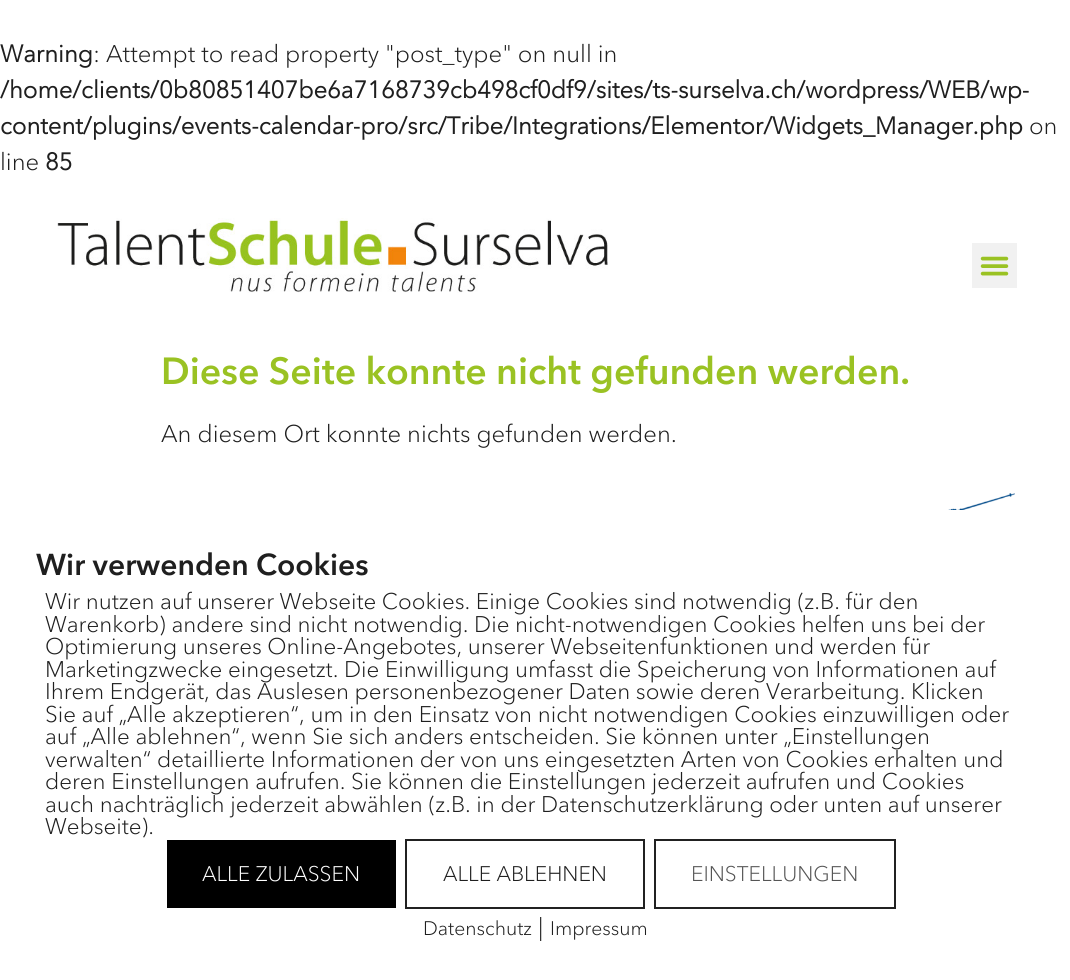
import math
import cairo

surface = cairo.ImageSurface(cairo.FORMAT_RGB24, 1070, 980)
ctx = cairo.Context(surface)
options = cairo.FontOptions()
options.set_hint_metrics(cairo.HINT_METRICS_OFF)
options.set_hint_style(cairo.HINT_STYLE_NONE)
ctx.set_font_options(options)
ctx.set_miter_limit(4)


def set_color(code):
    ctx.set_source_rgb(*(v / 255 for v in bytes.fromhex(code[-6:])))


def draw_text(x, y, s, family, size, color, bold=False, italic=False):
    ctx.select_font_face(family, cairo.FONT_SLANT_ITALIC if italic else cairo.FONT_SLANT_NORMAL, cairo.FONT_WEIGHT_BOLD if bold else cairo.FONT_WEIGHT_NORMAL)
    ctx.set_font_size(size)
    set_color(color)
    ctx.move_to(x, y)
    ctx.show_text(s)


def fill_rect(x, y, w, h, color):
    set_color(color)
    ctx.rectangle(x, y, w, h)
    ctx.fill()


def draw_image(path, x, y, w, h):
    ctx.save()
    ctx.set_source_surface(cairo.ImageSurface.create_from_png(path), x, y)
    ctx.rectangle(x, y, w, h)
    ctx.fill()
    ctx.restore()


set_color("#ffffff")
ctx.paint()
draw_text(0, 62, "Warning", "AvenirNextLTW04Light", 24, "#1f1f1f", bold=True)
draw_text(93, 62, ": Attempt to read property \"post_type\" on null in", "AvenirNextLTW04Light Light", 24, "#1f1f1f")
draw_text(0, 98, "/home/clients/0b80851407be6a7168739cb498cf0df9/sites/ts-surselva.ch/wordpress/WEB/wp-", "AvenirNextLTW04Light", 24, "#1f1f1f", bold=True)
draw_text(0, 134, "content/plugins/events-calendar-pro/src/Tribe/Integrations/Elementor/Widgets_Manager.php", "AvenirNextLTW04Light", 24, "#1f1f1f", bold=True)
draw_text(1029, 134, "on", "AvenirNextLTW04Light Light", 24, "#1f1f1f")
draw_text(0, 170, "line", "AvenirNextLTW04Light Light", 24, "#1f1f1f")
draw_text(45, 170, "85", "AvenirNextLTW04Light", 24, "#1f1f1f", bold=True)
draw_image("assets/img1.png", 57, 218, 551, 75)
fill_rect(972, 243, 45, 45, "#f1f1f1")
draw_image("assets/img2.png", 980, 256, 29, 20)
draw_text(161, 384, "Diese Seite konnte nicht gefunden werden.", "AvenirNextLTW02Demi", 37.5, "#9ac223", bold=True)
draw_text(161, 442, "An diesem Ort konnte nichts gefunden werden.", "AvenirNextLTW04Light Light", 24, "#1f1f1f")
draw_image("assets/img3.png", 948, 493, 67, 17)
draw_text(36, 575, "Wir verwenden Cookies", "AvenirNextLTW02Demi", 30, "#1f1f1f", bold=True)
draw_text(45, 609, "Wir nutzen auf unserer Webseite Cookies. Einige Cookies sind notwendig (z.B. für den", "AvenirNextLTW04Light Light", 22.5, "#1f1f1f")
draw_text(45, 632, "Warenkorb) andere sind nicht notwendig. Die nicht-notwendigen Cookies helfen uns bei der", "AvenirNextLTW04Light Light", 22.5, "#1f1f1f")
draw_text(45, 654, "Optimierung unseres Online-Angebotes, unserer Webseitenfunktionen und werden für", "AvenirNextLTW04Light Light", 22.5, "#1f1f1f")
draw_text(45, 677, "Marketingzwecke eingesetzt. Die Einwilligung umfasst die Speicherung von Informationen auf", "AvenirNextLTW04Light Light", 22.5, "#1f1f1f")
draw_text(45, 699, "Ihrem Endgerät, das Auslesen personenbezogener Daten sowie deren Verarbeitung. Klicken", "AvenirNextLTW04Light Light", 22.5, "#1f1f1f")
draw_text(45, 722, "Sie auf „Alle akzeptieren“, um in den Einsatz von nicht notwendigen Cookies einzuwilligen oder", "AvenirNextLTW04Light Light", 22.5, "#1f1f1f")
draw_text(45, 744, "auf „Alle ablehnen“, wenn Sie sich anders entscheiden. Sie können unter „Einstellungen", "AvenirNextLTW04Light Light", 22.5, "#1f1f1f")
draw_text(45, 767, "verwalten“ detaillierte Informationen der von uns eingesetzten Arten von Cookies erhalten und", "AvenirNextLTW04Light Light", 22.5, "#1f1f1f")
draw_text(45, 789, "deren Einstellungen aufrufen. Sie können die Einstellungen jederzeit aufrufen und Cookies", "AvenirNextLTW04Light Light", 22.5, "#1f1f1f")
draw_text(45, 812, "auch nachträglich jederzeit abwählen (z.B. in der Datenschutzerklärung oder unten auf unserer", "AvenirNextLTW04Light Light", 22.5, "#1f1f1f")
draw_text(45, 834, "Webseite).", "AvenirNextLTW04Light Light", 22.5, "#1f1f1f")
fill_rect(167, 840, 229, 68, "#000000")
draw_text(202, 881, "ALLE ZULASSEN", "AvenirNextLTW04Light Light", 21, "#ffffff")
ctx.rectangle(406, 840, 238, 68)
set_color("#212121")
ctx.stroke()
draw_text(443, 881, "ALLE ABLEHNEN", "AvenirNextLTW04Light Light", 21, "#1f1f1f")
ctx.rectangle(655, 840, 240, 68)
set_color("#212121")
ctx.stroke()
draw_text(691, 881, "EINSTELLUNGEN", "AvenirNextLTW04Light Light", 21, "#555555")
draw_text(423, 935, "Datenschutz", "AvenirNextLTW04Light Light", 19.5, "#1f1f1f")
draw_text(538, 935, "|", "AvenirNextLTW04Light Light", 24, "#1f1f1f")
draw_text(550, 935, "Impressum", "AvenirNextLTW04Light Light", 19.5, "#1f1f1f")
surface.write_to_png("output.png")
